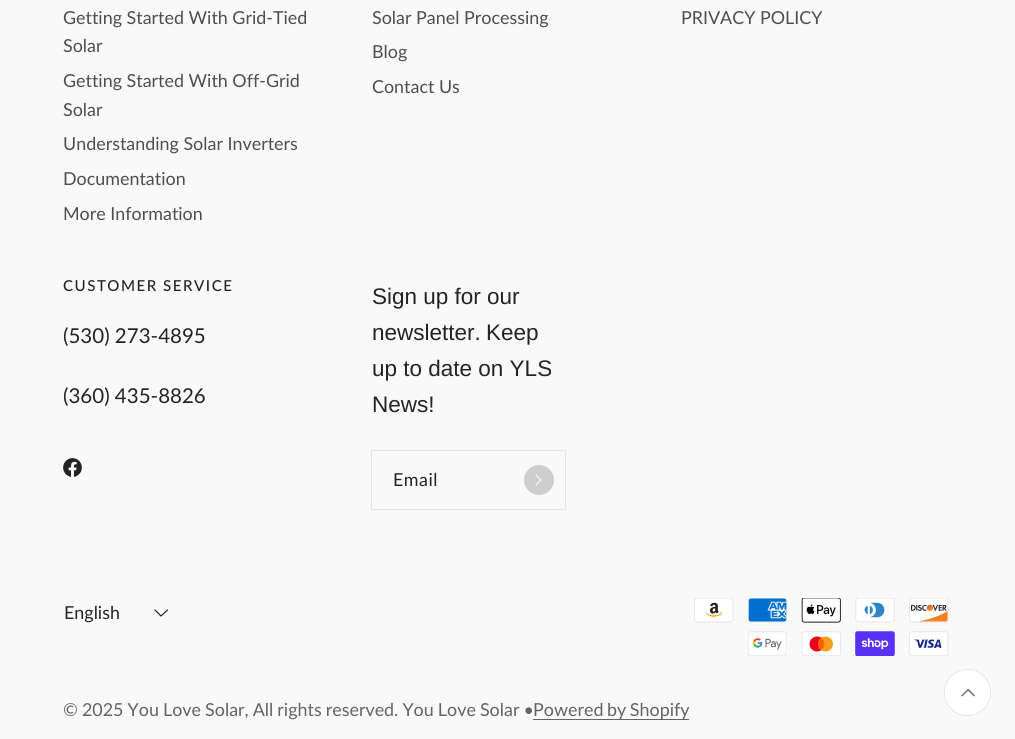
import math
import cairo

surface = cairo.ImageSurface(cairo.FORMAT_RGB24, 1015, 739)
ctx = cairo.Context(surface)
options = cairo.FontOptions()
options.set_hint_metrics(cairo.HINT_METRICS_OFF)
options.set_hint_style(cairo.HINT_STYLE_NONE)
ctx.set_font_options(options)
ctx.set_miter_limit(4)


def set_color(code):
    ctx.set_source_rgb(*(v / 255 for v in bytes.fromhex(code[-6:])))


def draw_text(x, y, s, family, size, color, bold=False, italic=False):
    ctx.select_font_face(family, cairo.FONT_SLANT_ITALIC if italic else cairo.FONT_SLANT_NORMAL, cairo.FONT_WEIGHT_BOLD if bold else cairo.FONT_WEIGHT_NORMAL)
    ctx.set_font_size(size)
    set_color(color)
    ctx.move_to(x, y)
    ctx.show_text(s)


def draw_spaced(x, y, s, letter, word):
    ctx.move_to(x, y)
    for ch in s:
        ctx.show_text(ch)
        ctx.rel_move_to(letter + word * (ch == ' '), 0)


def fill_rect(x, y, w, h, color):
    set_color(color)
    ctx.rectangle(x, y, w, h)
    ctx.fill()


def draw_image(path, x, y, w, h):
    ctx.save()
    ctx.set_source_surface(cairo.ImageSurface.create_from_png(path), x, y)
    ctx.rectangle(x, y, w, h)
    ctx.fill()
    ctx.restore()


set_color("#f9f9f9")
ctx.paint()
draw_text(63, 24, "Getting Started With Grid-Tied", "Lato", 17.9, "#4e4e4e")
draw_text(63, 52, "Solar", "Lato", 17.9, "#4e4e4e")
draw_text(63, 87, "Getting Started With Off-Grid", "Lato", 17.9, "#4e4e4e")
draw_text(63, 116, "Solar", "Lato", 17.9, "#4e4e4e")
draw_text(63, 150, "Understanding Solar Inverters", "Lato", 17.9, "#4e4e4e")
draw_text(63, 185, "Documentation", "Lato", 17.9, "#4e4e4e")
draw_text(63, 220, "More Information", "Lato", 17.9, "#4e4e4e")
draw_text(372, 24, "Solar Panel Processing", "Lato", 17.9, "#4e4e4e")
draw_text(372, 58, "Blog", "Lato", 17.9, "#4e4e4e")
draw_text(372, 93, "Contact Us", "Lato", 17.9, "#4e4e4e")
draw_text(681, 24, "PRIVACY POLICY", "Lato", 17.9, "#4e4e4e")
ctx.select_font_face("Lato Medium")
ctx.set_font_size(15.1)
set_color("#232323")
draw_spaced(63, 291, "CUSTOMER SERVICE", 1.5, 0)
draw_text(63, 343, "(530) 273-4895", "Lato", 20.5, "#232323")
draw_text(63, 403, "(360) 435-8826", "Lato", 20.5, "#232323")
draw_image("assets/img1.png", 63, 458, 19, 19)
draw_text(372, 304, "Sign up for our", "Arimo", 22.5, "#232323")
draw_spaced(372, 340, "newsletter. Keep", 0, -1)
draw_text(372, 376, "up to date on YLS", "Arimo", 22.5, "#232323")
draw_text(372, 412, "News!", "Arimo", 22.5, "#232323")
ctx.rectangle(371.5, 450.5, 194, 59)
set_color("#e4e4e4")
ctx.set_line_width(1)
ctx.stroke()
ctx.select_font_face("Lato")
ctx.set_font_size(17.9)
set_color("#232323")
draw_spaced(393, 486, "Email", 0.5, 0)
set_color("#cecece")
ctx.new_path()
ctx.arc(539, 480, 15, 0, 2 * math.pi)
ctx.fill()
ctx.new_path()
ctx.move_to(536, 475)
ctx.line_to(541, 480)
ctx.line_to(536, 485)
set_color("#f9f9f9")
ctx.set_line_width(1.2)
ctx.set_line_cap(cairo.LINE_CAP_ROUND)
ctx.set_line_join(cairo.LINE_JOIN_ROUND)
ctx.stroke()
draw_text(64, 619, "English", "Lato", 17.9, "#232323")
ctx.new_path()
ctx.move_to(167.5, 610)
ctx.line_to(161, 616)
ctx.line_to(155, 610)
ctx.stroke()
draw_image("assets/img2.png", 694, 598, 40, 25)
draw_image("assets/img3.png", 748, 598, 39, 25)
draw_image("assets/img4.png", 801, 598, 40, 25)
draw_image("assets/img5.png", 855, 598, 40, 25)
draw_image("assets/img6.png", 909, 598, 40, 25)
draw_image("assets/img7.png", 748, 631, 39, 25)
draw_image("assets/img8.png", 801, 631, 40, 25)
draw_image("assets/img9.png", 855, 631, 40, 25)
draw_image("assets/img10.png", 909, 631, 40, 25)
set_color("#636363")
draw_spaced(63, 716, "© 2025 You Love Solar, All rights reserved. You Love Solar •", 0, -0.5)
fill_rect(533, 719, 156, 1, "#636363")
draw_spaced(533, 716, "Powered by Shopify", 0, -1)
ctx.new_path()
ctx.arc(967.5, 692.5, 23, 0, 2 * math.pi)
set_color("#e4e4e4")
ctx.set_line_width(1)
ctx.set_line_cap(cairo.LINE_CAP_BUTT)
ctx.set_line_join(cairo.LINE_JOIN_MITER)
ctx.stroke()
set_color("#ffffff")
ctx.arc(967.5, 692.5, 22.5, 0, 2 * math.pi)
ctx.fill()
draw_image("assets/img11.png", 961, 688, 14, 9)
surface.write_to_png("output.png")
